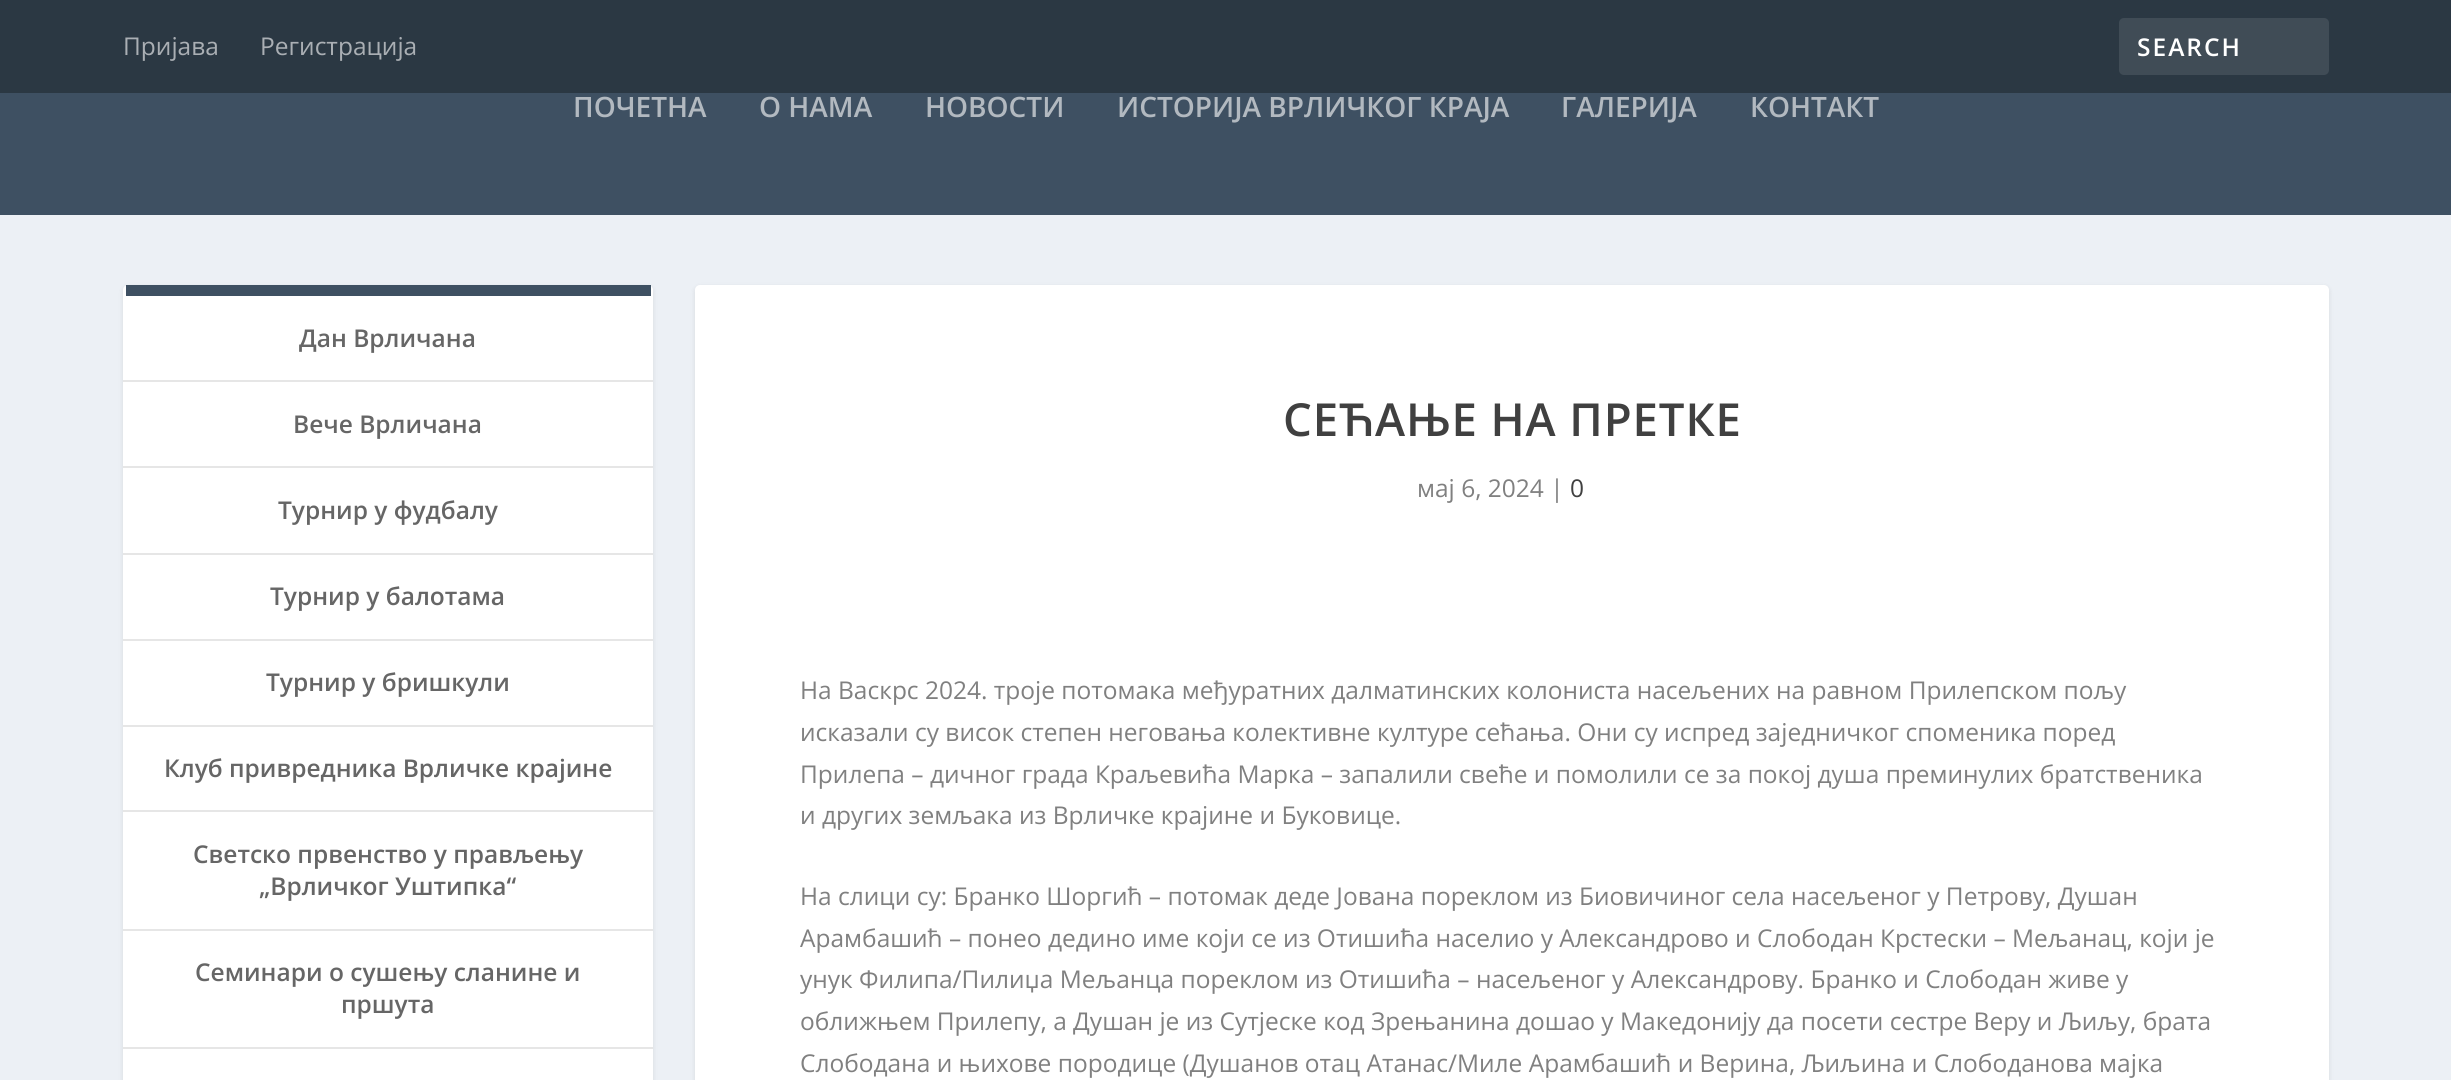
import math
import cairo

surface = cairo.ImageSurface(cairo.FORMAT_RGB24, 2451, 1080)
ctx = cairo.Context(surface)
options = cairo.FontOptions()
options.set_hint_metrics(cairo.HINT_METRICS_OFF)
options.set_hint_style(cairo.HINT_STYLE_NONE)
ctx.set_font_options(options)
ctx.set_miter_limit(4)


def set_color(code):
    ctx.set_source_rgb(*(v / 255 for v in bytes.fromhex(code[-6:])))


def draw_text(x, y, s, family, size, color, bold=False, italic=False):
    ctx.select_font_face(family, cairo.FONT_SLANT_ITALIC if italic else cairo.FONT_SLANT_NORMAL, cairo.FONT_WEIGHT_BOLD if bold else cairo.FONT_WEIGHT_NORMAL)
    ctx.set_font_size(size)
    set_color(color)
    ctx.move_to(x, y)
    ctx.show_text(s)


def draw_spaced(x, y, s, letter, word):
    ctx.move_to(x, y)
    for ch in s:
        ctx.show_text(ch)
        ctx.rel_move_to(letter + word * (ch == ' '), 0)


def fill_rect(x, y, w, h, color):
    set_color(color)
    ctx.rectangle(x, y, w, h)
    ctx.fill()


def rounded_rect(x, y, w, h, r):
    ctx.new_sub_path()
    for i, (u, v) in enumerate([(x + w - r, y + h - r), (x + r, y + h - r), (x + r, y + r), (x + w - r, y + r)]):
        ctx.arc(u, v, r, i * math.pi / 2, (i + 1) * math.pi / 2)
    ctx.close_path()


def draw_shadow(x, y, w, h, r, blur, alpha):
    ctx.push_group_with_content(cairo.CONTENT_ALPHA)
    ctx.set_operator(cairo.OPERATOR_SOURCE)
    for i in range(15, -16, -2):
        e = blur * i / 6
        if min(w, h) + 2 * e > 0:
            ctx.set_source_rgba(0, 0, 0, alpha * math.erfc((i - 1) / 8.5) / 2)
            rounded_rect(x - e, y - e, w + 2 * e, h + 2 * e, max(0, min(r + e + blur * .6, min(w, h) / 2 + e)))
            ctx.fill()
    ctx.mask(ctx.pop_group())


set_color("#ecf0f5")
ctx.paint()
fill_rect(0, 0, 2451, 93, "#2b3843")
draw_text(123, 55, "Пријава", "Open Sans", 24.5, "#aaafb4")
draw_text(260, 55, "Регистрација", "Open Sans", 24.5, "#aaafb4")
set_color("#404c56")
rounded_rect(2119, 18, 210, 57, 5)
ctx.fill()
ctx.select_font_face("Open Sans SemiBold")
set_color("#ffffff")
draw_spaced(2137, 56, "SEARCH", 2, 0)
fill_rect(0, 93, 2451, 122, "#3e5062")
draw_text(573, 117, "ПОЧЕТНА", "Open Sans SemiBold", 28, "#b2b9c0")
draw_text(759, 117, "О НАМА", "Open Sans SemiBold", 28, "#b2b9c0")
draw_text(925, 117, "НОВОСТИ", "Open Sans SemiBold", 28, "#b2b9c0")
draw_text(1117, 117, "ИСТОРИЈА ВРЛИЧКОГ КРАЈА", "Open Sans SemiBold", 28, "#b2b9c0")
draw_text(1561, 117, "ГАЛЕРИЈА", "Open Sans SemiBold", 28, "#b2b9c0")
draw_text(1750, 117, "КОНТАКТ", "Open Sans SemiBold", 28, "#b2b9c0")
set_color("#000000")
draw_shadow(123, 287, 530, 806, 5, 2.5, 0.1)
set_color("#ffffff")
rounded_rect(123, 285, 530, 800, 5)
ctx.fill()
fill_rect(126, 285, 525, 11, "#3e5062")
fill_rect(123, 380, 530, 2, "#e6e6e6")
draw_text(299, 347, "Дан Врличана", "Open Sans SemiBold", 24.5, "#666666")
fill_rect(123, 466, 530, 2, "#e6e6e6")
draw_text(293, 433, "Вече Врличана", "Open Sans SemiBold", 24.5, "#666666")
fill_rect(123, 553, 530, 2, "#e6e6e6")
draw_text(278, 519, "Турнир у фудбалу", "Open Sans SemiBold", 24.5, "#666666")
fill_rect(123, 639, 530, 2, "#e6e6e6")
draw_text(270, 605, "Турнир у балотама", "Open Sans SemiBold", 24.5, "#666666")
fill_rect(123, 725, 530, 2, "#e6e6e6")
draw_text(266, 691, "Турнир у бришкули", "Open Sans SemiBold", 24.5, "#666666")
fill_rect(123, 810, 530, 2, "#e6e6e6")
draw_text(164, 777, "Клуб привредника Врличке крајине", "Open Sans SemiBold", 24.5, "#666666")
fill_rect(123, 929, 530, 2, "#e6e6e6")
draw_text(193, 863, "Светско првенство у прављењу", "Open Sans SemiBold", 24.5, "#666666")
draw_text(259, 895, "„Врличког Уштипка“", "Open Sans SemiBold", 24.5, "#666666")
fill_rect(123, 1047, 530, 2, "#e6e6e6")
draw_text(195, 981, "Семинари о сушењу сланине и", "Open Sans SemiBold", 24.5, "#666666")
draw_text(341, 1013, "пршута", "Open Sans SemiBold", 24.5, "#666666")
set_color("#000000")
draw_shadow(695, 287, 1634, 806, 5, 2.5, 0.1)
set_color("#ffffff")
rounded_rect(695, 285, 1634, 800, 5)
ctx.fill()
ctx.set_font_size(45.5)
set_color("#404040")
draw_spaced(1283, 436, "СЕЋАЊЕ НА ПРЕТКЕ", 0.9, 0)
draw_text(1417, 497, "мај 6, 2024 |", "Open Sans", 24.5, "#808080")
draw_text(1570, 497, "0", "Open Sans", 24.5, "#404040")
draw_text(800, 699, "На Васкрс 2024. троје потомака међуратних далматинских колониста насељених на равном Прилепском пољу", "Open Sans", 24.5, "#808080")
draw_text(800, 741, "исказали су висок степен неговања колективне културе сећања. Они су испред заједничког споменика поред", "Open Sans", 24.5, "#808080")
draw_text(800, 783, "Прилепа – дичног града Краљевића Марка – запалили свеће и помолили се за покој душа преминулих братственика", "Open Sans", 24.5, "#808080")
draw_text(800, 824, "и других земљака из Врличке крајине и Буковице.", "Open Sans", 24.5, "#808080")
draw_text(800, 905, "На слици су: Бранко Шоргић – потомак деде Јована пореклом из Биовичиног села насељеног у Петрову, Душан", "Open Sans", 24.5, "#808080")
draw_text(800, 947, "Арамбашић – понео дедино име који се из Отишића населио у Александрово и Слободан Крстески – Мељанац, који је", "Open Sans", 24.5, "#808080")
draw_text(800, 988, "унук Филипа/Пилиџа Мељанца пореклом из Отишића – насељеног у Александрову. Бранко и Слободан живе у", "Open Sans", 24.5, "#808080")
draw_text(800, 1030, "оближњем Прилепу, а Душан је из Сутјеске код Зрењанина дошао у Македонију да посети сестре Веру и Љиљу, брата", "Open Sans", 24.5, "#808080")
draw_text(800, 1072, "Слободана и њихове породице (Душанов отац Атанас/Миле Арамбашић и Верина, Љиљина и Слободанова мајка", "Open Sans", 24.5, "#808080")
surface.write_to_png("output.png")
